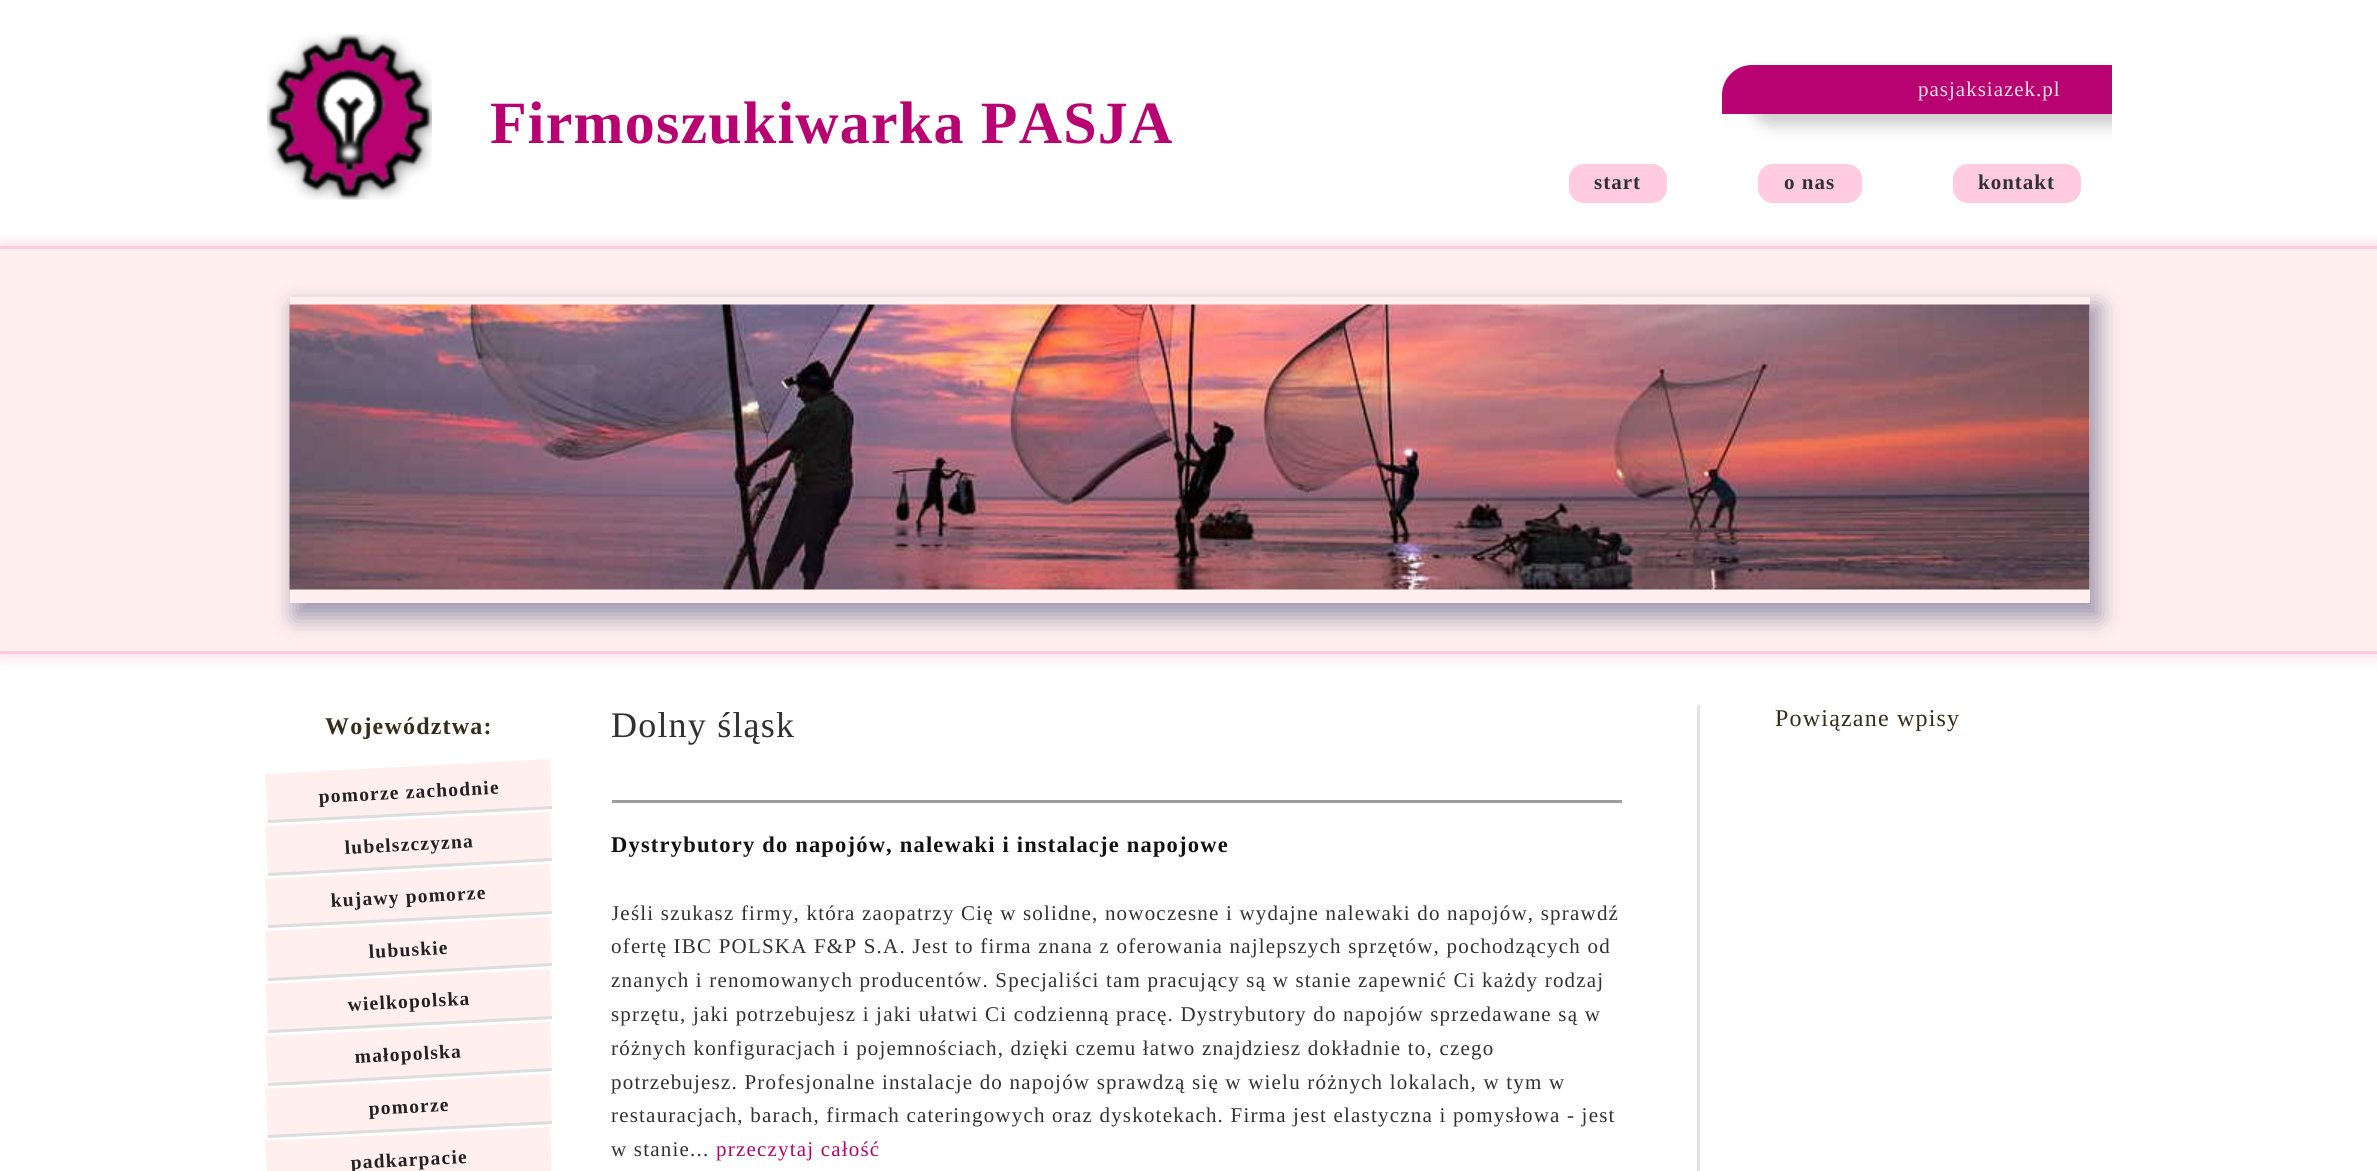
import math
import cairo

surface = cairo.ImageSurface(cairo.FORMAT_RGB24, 2377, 1171)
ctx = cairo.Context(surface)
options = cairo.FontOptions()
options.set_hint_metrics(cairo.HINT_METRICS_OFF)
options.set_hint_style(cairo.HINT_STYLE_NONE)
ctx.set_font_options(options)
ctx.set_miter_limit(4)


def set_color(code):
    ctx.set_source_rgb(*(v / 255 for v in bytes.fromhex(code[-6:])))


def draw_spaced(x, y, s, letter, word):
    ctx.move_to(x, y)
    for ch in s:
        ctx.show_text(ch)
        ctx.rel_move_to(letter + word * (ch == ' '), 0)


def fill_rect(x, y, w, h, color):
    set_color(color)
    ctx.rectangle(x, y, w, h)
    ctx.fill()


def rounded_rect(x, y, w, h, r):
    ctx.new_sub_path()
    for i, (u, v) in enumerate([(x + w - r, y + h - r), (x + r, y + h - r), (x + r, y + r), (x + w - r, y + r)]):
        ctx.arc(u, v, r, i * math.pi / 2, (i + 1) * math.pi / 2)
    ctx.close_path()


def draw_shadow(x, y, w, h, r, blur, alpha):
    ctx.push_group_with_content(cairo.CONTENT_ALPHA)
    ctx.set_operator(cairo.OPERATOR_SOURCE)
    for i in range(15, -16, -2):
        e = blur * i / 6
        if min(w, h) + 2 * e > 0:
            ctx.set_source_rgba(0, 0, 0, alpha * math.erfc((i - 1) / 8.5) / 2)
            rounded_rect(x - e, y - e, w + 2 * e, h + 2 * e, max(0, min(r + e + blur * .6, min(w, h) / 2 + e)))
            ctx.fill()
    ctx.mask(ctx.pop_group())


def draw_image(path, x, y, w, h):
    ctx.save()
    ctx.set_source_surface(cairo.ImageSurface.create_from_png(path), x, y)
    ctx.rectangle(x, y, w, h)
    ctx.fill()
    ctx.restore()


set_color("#ffffff")
ctx.paint()
ctx.save()
ctx.rectangle(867, 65, 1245, 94)
ctx.clip()
set_color("#cccccc")
draw_shadow(1749, 69, 396, 56, 33, 7.5, 1)
ctx.restore()
set_color("#b80271")
ctx.new_path()
ctx.move_to(1752, 65)
ctx.line_to(2112, 65)
ctx.line_to(2112, 114)
ctx.line_to(1722, 114)
ctx.line_to(1722, 95)
ctx.curve_to(1722, 78.5, 1735.5, 65, 1752, 65)
ctx.close_path()
ctx.fill()
ctx.select_font_face("Liberation Serif")
ctx.set_font_size(21)
set_color("#fadee0")
draw_spaced(1918, 96, "pasjaksiazek.pl", 1, 0)
draw_image("assets/img1.png", 267, 34, 165, 166)
ctx.select_font_face("Liberation Serif", cairo.FONT_SLANT_NORMAL, cairo.FONT_WEIGHT_BOLD)
ctx.set_font_size(60)
set_color("#b80271")
draw_spaced(490, 143, "Firmoszukiwarka PASJA", 1.2, 0)
set_color("#ffccdf")
rounded_rect(1569, 164, 98, 39, 15)
ctx.fill()
ctx.set_font_size(21)
set_color("#313131")
draw_spaced(1594, 189, "start", 1, 0)
set_color("#ffccdf")
rounded_rect(1758, 164, 104, 39, 15)
ctx.fill()
set_color("#313131")
draw_spaced(1784, 189, "o nas", 1, 0)
set_color("#ffccdf")
rounded_rect(1953, 164, 128, 39, 15)
ctx.fill()
set_color("#313131")
draw_spaced(1978, 189, "kontakt", 1, 0)
set_color("#ffccdf")
draw_shadow(0, 246, 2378, 408, 0, 7.5, 1)
fill_rect(0, 249, 2377, 402, "#ffefef")
fill_rect(0, 246, 2377, 3, "#ffccdf")
fill_rect(0, 651, 2377, 3, "#ffccdf")
set_color("#3f4370")
draw_shadow(294, 306, 1806, 312, 0, 11, 0.5)
fill_rect(290, 297, 1800, 306, "#ffefef")
draw_image("assets/img2.png", 289, 304, 1801, 286)
fill_rect(1697, 705, 3, 466, "#e2e2e2")
ctx.set_font_size(24)
set_color("#352c1c")
draw_spaced(325, 734, "Województwa:", 1.2, 0)
set_color("#ffefef")
ctx.new_path()
ctx.move_to(265, 774)
ctx.line_to(550, 759)
ctx.line_to(552, 809)
ctx.line_to(268, 823)
ctx.close_path()
ctx.fill()
set_color("#dddddd")
ctx.new_path()
ctx.move_to(268, 820)
ctx.line_to(552, 806)
ctx.line_to(552, 809)
ctx.line_to(268, 823)
ctx.close_path()
ctx.fill()
ctx.set_font_size(19.5)
set_color("#222222")
ctx.save()
ctx.translate(319, 803)
ctx.rotate(-3 * math.pi / 180)
draw_spaced(0, 0, "pomorze zachodnie", 1.2, 0)
ctx.restore()
set_color("#ffefef")
ctx.new_path()
ctx.move_to(265, 826)
ctx.line_to(550, 812)
ctx.line_to(552, 861)
ctx.line_to(268, 876)
ctx.close_path()
ctx.fill()
set_color("#dddddd")
ctx.new_path()
ctx.move_to(268, 873)
ctx.line_to(552, 858)
ctx.line_to(552, 861)
ctx.line_to(268, 876)
ctx.close_path()
ctx.fill()
set_color("#222222")
ctx.save()
ctx.translate(345, 854)
ctx.rotate(-3 * math.pi / 180)
draw_spaced(0, 0, "lubelszczyzna", 1.2, 0)
ctx.restore()
set_color("#ffefef")
ctx.new_path()
ctx.move_to(265, 879)
ctx.line_to(550, 864)
ctx.line_to(552, 914)
ctx.line_to(268, 928)
ctx.close_path()
ctx.fill()
set_color("#dddddd")
ctx.new_path()
ctx.move_to(268, 925)
ctx.line_to(552, 911)
ctx.line_to(552, 914)
ctx.line_to(268, 928)
ctx.close_path()
ctx.fill()
set_color("#222222")
ctx.save()
ctx.translate(331, 907)
ctx.rotate(-3 * math.pi / 180)
draw_spaced(0, 0, "kujawy pomorze", 1.2, 0)
ctx.restore()
set_color("#ffefef")
ctx.new_path()
ctx.move_to(265, 931)
ctx.line_to(550, 917)
ctx.line_to(552, 966)
ctx.line_to(268, 981)
ctx.close_path()
ctx.fill()
set_color("#dddddd")
ctx.new_path()
ctx.move_to(268, 978)
ctx.line_to(552, 963)
ctx.line_to(552, 966)
ctx.line_to(268, 981)
ctx.close_path()
ctx.fill()
set_color("#222222")
ctx.save()
ctx.translate(369, 958)
ctx.rotate(-3 * math.pi / 180)
draw_spaced(0, 0, "lubuskie", 1.2, 0)
ctx.restore()
set_color("#ffefef")
ctx.new_path()
ctx.move_to(265, 984)
ctx.line_to(550, 969)
ctx.line_to(552, 1019)
ctx.line_to(268, 1033)
ctx.close_path()
ctx.fill()
set_color("#dddddd")
ctx.new_path()
ctx.move_to(268, 1030)
ctx.line_to(552, 1016)
ctx.line_to(552, 1019)
ctx.line_to(268, 1033)
ctx.close_path()
ctx.fill()
set_color("#222222")
ctx.save()
ctx.translate(348, 1011)
ctx.rotate(-3 * math.pi / 180)
draw_spaced(0, 0, "wielkopolska", 1.2, 0)
ctx.restore()
set_color("#ffefef")
ctx.new_path()
ctx.move_to(265, 1036)
ctx.line_to(550, 1022)
ctx.line_to(552, 1071)
ctx.line_to(268, 1086)
ctx.close_path()
ctx.fill()
set_color("#dddddd")
ctx.new_path()
ctx.move_to(268, 1083)
ctx.line_to(552, 1068)
ctx.line_to(552, 1071)
ctx.line_to(268, 1086)
ctx.close_path()
ctx.fill()
set_color("#222222")
ctx.save()
ctx.translate(355, 1063)
ctx.rotate(-3 * math.pi / 180)
draw_spaced(0, 0, "małopolska", 1.2, 0)
ctx.restore()
set_color("#ffefef")
ctx.new_path()
ctx.move_to(265, 1089)
ctx.line_to(550, 1074)
ctx.line_to(552, 1124)
ctx.line_to(268, 1138)
ctx.close_path()
ctx.fill()
set_color("#dddddd")
ctx.new_path()
ctx.move_to(268, 1135)
ctx.line_to(552, 1121)
ctx.line_to(552, 1124)
ctx.line_to(268, 1138)
ctx.close_path()
ctx.fill()
set_color("#222222")
ctx.save()
ctx.translate(369, 1115)
ctx.rotate(-3 * math.pi / 180)
draw_spaced(0, 0, "pomorze", 1.2, 0)
ctx.restore()
set_color("#ffefef")
ctx.new_path()
ctx.move_to(265, 1141)
ctx.line_to(550, 1127)
ctx.line_to(552, 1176)
ctx.line_to(268, 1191)
ctx.close_path()
ctx.fill()
set_color("#222222")
ctx.save()
ctx.translate(351, 1169)
ctx.rotate(-3 * math.pi / 180)
draw_spaced(0, 0, "padkarpacie", 1.2, 0)
ctx.restore()
ctx.select_font_face("Liberation Serif")
ctx.set_font_size(36)
set_color("#313131")
draw_spaced(611, 737, "Dolny śląsk", 1.2, 0)
fill_rect(612, 800, 1010, 3, "#9e9e9e")
ctx.select_font_face("Liberation Serif", cairo.FONT_SLANT_NORMAL, cairo.FONT_WEIGHT_BOLD)
ctx.set_font_size(22.5)
set_color("#111111")
draw_spaced(611, 852, "Dystrybutory do napojów, nalewaki i instalacje napojowe", 1.2, 0)
ctx.save()
ctx.rectangle(612, 803, 1010, 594)
ctx.clip()
ctx.select_font_face("Liberation Serif")
ctx.set_font_size(21)
set_color("#313131")
draw_spaced(611, 920, "Jeśli szukasz firmy, która zaopatrzy Cię w solidne, nowoczesne i wydajne nalewaki do napojów, sprawdź", 1.2, 0)
ctx.restore()
ctx.select_font_face("Liberation Serif")
ctx.set_font_size(21)
set_color("#313131")
draw_spaced(611, 953, "ofertę IBC POLSKA F&P S.A. Jest to firma znana z oferowania najlepszych sprzętów, pochodzących od", 1.2, 0)
draw_spaced(611, 987, "znanych i renomowanych producentów. Specjaliści tam pracujący są w stanie zapewnić Ci każdy rodzaj", 1.2, 0)
draw_spaced(611, 1021, "sprzętu, jaki potrzebujesz i jaki ułatwi Ci codzienną pracę. Dystrybutory do napojów sprzedawane są w", 1.2, 0)
draw_spaced(611, 1055, "różnych konfiguracjach i pojemnościach, dzięki czemu łatwo znajdziesz dokładnie to, czego", 1.2, 0)
draw_spaced(611, 1089, "potrzebujesz. Profesjonalne instalacje do napojów sprawdzą się w wielu różnych lokalach, w tym w", 1.2, 0)
draw_spaced(611, 1122, "restauracjach, barach, firmach cateringowych oraz dyskotekach. Firma jest elastyczna i pomysłowa - jest", 1.2, 0)
draw_spaced(611, 1156, "w stanie...", 1.2, 0)
set_color("#b80271")
draw_spaced(716, 1156, "przeczytaj całość", 1.2, 0)
ctx.set_font_size(24)
set_color("#352c1c")
draw_spaced(1775, 726, "Powiązane wpisy", 1.2, 0)
surface.write_to_png("output.png")
